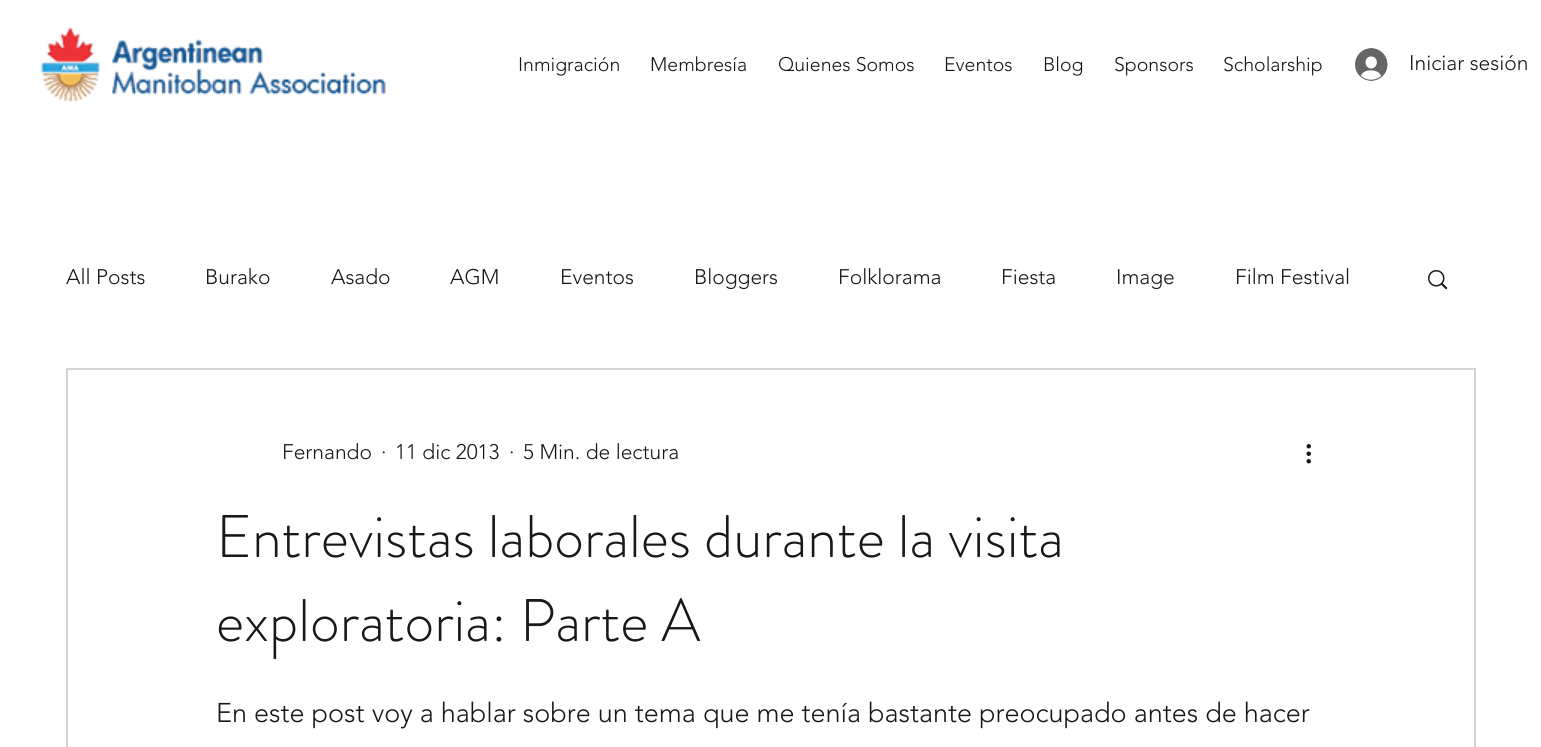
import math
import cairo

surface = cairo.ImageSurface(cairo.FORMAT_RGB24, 1541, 747)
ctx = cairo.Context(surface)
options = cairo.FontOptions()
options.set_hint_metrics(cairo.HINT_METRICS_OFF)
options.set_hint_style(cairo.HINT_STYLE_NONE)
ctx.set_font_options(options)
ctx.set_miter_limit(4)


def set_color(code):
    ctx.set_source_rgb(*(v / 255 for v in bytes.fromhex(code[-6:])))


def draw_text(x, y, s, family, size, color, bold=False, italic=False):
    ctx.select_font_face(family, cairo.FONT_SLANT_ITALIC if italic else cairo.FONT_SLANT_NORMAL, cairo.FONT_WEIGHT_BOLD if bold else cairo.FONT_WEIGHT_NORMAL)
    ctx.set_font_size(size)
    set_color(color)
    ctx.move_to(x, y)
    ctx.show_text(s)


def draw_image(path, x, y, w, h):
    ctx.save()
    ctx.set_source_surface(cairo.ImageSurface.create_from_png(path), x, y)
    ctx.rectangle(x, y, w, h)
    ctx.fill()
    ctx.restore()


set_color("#ffffff")
ctx.paint()
draw_image("assets/img1.png", 40, 27, 346, 75)
draw_text(518, 71, "Inmigración", "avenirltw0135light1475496 Light", 19.5, "#181818")
draw_text(650, 71, "Membresía", "avenirltw0135light1475496 Light", 19.5, "#181818")
draw_text(778, 71, "Quienes Somos", "avenirltw0135light1475496 Light", 19.5, "#181818")
draw_text(944, 71, "Eventos", "avenirltw0135light1475496 Light", 19.5, "#181818")
draw_text(1043, 71, "Blog", "avenirltw0135light1475496 Light", 19.5, "#181818")
draw_text(1114, 71, "Sponsors", "avenirltw0135light1475496 Light", 19.5, "#181818")
draw_text(1223, 71, "Scholarship", "avenirltw0135light1475496 Light", 19.5, "#181818")
draw_image("assets/img2.png", 1355, 48, 33, 33)
draw_text(1409, 70, "Iniciar sesión", "avenirltw0135light1475496 Light", 21, "#181818")
draw_text(66, 284, "All Posts", "avenirltw0135light1475496 Light", 21, "#181818")
draw_text(205, 284, "Burako", "avenirltw0135light1475496 Light", 21, "#181818")
draw_text(331, 284, "Asado", "avenirltw0135light1475496 Light", 21, "#181818")
draw_text(450, 284, "AGM", "avenirltw0135light1475496 Light", 21, "#181818")
draw_text(560, 284, "Eventos", "avenirltw0135light1475496 Light", 21, "#181818")
draw_text(694, 284, "Bloggers", "avenirltw0135light1475496 Light", 21, "#181818")
draw_text(838, 284, "Folklorama", "avenirltw0135light1475496 Light", 21, "#181818")
draw_text(1001, 284, "Fiesta", "avenirltw0135light1475496 Light", 21, "#181818")
draw_text(1116, 284, "Image", "avenirltw0135light1475496 Light", 21, "#181818")
draw_text(1235, 284, "Film Festival", "avenirltw0135light1475496 Light", 21, "#181818")
draw_image("assets/img3.png", 1428, 270, 20, 20)
ctx.rectangle(67, 369, 1408, 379)
set_color("#d4d4d4")
ctx.stroke()
draw_text(282, 459, "Fernando", "avenirltw0135light1475496 Light", 21, "#181818")
draw_text(381, 459, "·", "avenirltw0135light1475496 Light", 21, "#181818")
draw_text(395, 459, "11 dic 2013", "avenirltw0135light1475496 Light", 21, "#181818")
draw_text(509, 459, "·", "avenirltw0135light1475496 Light", 21, "#181818")
draw_text(523, 459, "5 Min. de lectura", "avenirltw0135light1475496 Light", 21, "#181818")
draw_image("assets/img4.png", 1306, 444, 5, 20)
draw_text(216, 557, "Entrevistas laborales durante la visita", "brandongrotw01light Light", 60, "#181818")
draw_text(216, 641, "exploratoria: Parte A", "brandongrotw01light Light", 60, "#181818")
draw_text(216, 722, "En este post voy a hablar sobre un tema que me tenía bastante preocupado antes de hacer", "avenirltw0135light1475496 Light", 27, "#181818")
surface.write_to_png("output.png")
